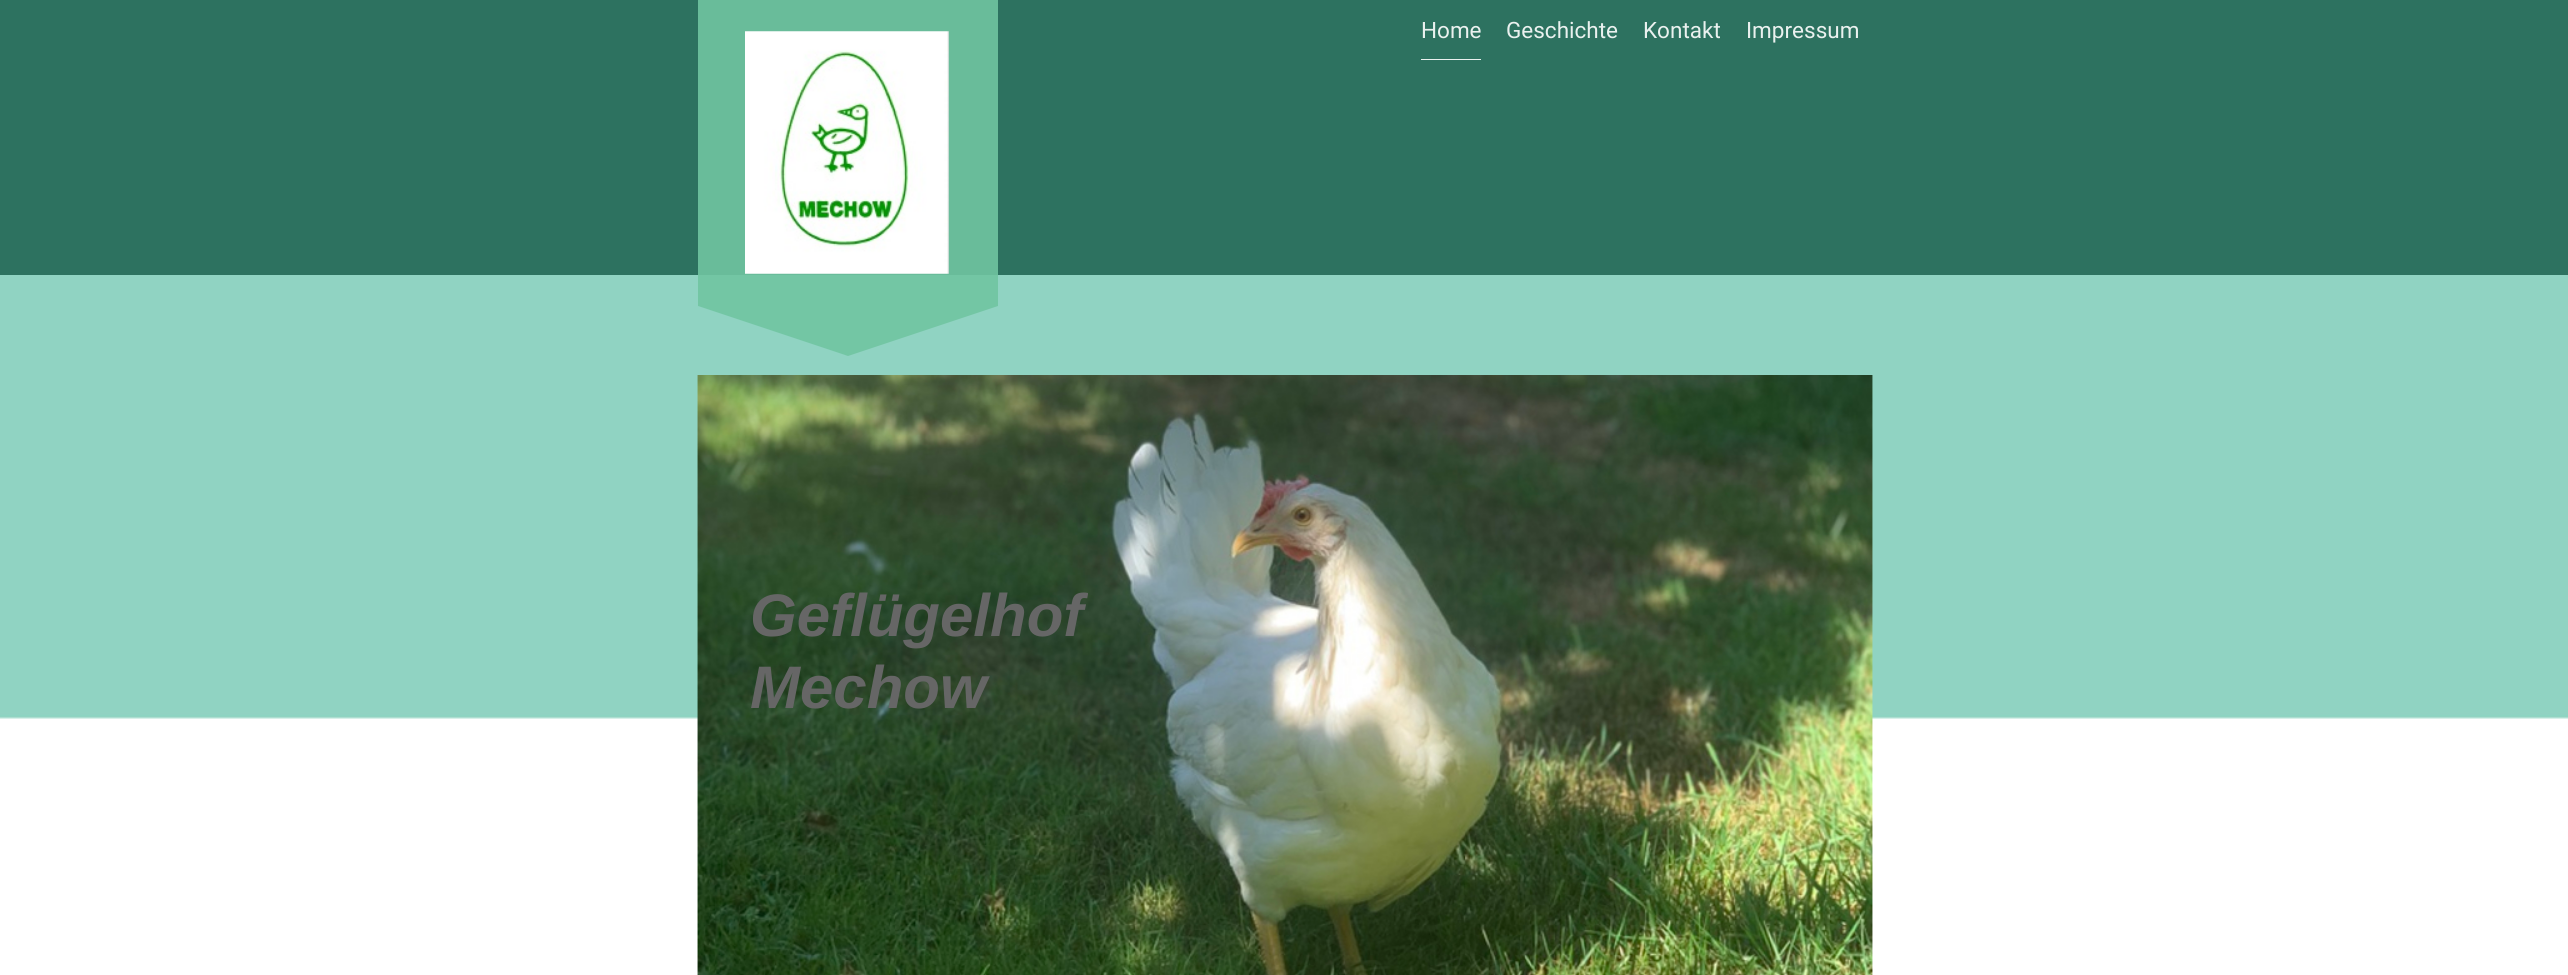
import math
import cairo

surface = cairo.ImageSurface(cairo.FORMAT_RGB24, 2568, 975)
ctx = cairo.Context(surface)
options = cairo.FontOptions()
options.set_hint_metrics(cairo.HINT_METRICS_OFF)
options.set_hint_style(cairo.HINT_STYLE_NONE)
ctx.set_font_options(options)
ctx.set_miter_limit(4)


def set_color(code):
    ctx.set_source_rgb(*(v / 255 for v in bytes.fromhex(code[-6:])))


def draw_text(x, y, s, family, size, color, bold=False, italic=False):
    ctx.select_font_face(family, cairo.FONT_SLANT_ITALIC if italic else cairo.FONT_SLANT_NORMAL, cairo.FONT_WEIGHT_BOLD if bold else cairo.FONT_WEIGHT_NORMAL)
    ctx.set_font_size(size)
    set_color(color)
    ctx.move_to(x, y)
    ctx.show_text(s)


def fill_rect(x, y, w, h, color):
    set_color(color)
    ctx.rectangle(x, y, w, h)
    ctx.fill()


def draw_image(path, x, y, w, h):
    ctx.save()
    ctx.set_source_surface(cairo.ImageSurface.create_from_png(path), x, y)
    ctx.rectangle(x, y, w, h)
    ctx.fill()
    ctx.restore()


set_color("#ffffff")
ctx.paint()
draw_image("assets/img1.png", 0, 275, 2568, 700)
fill_rect(0, 0, 2568, 275, "#2d7260")
ctx.set_source_rgba(0.439, 0.769, 0.631, 0.9)
ctx.rectangle(698, 0, 300, 306)
ctx.fill()
draw_image("assets/img2.png", 745, 31, 204, 243)
set_color("#73c6a4")
ctx.new_path()
ctx.move_to(698, 306)
ctx.line_to(998, 306)
ctx.line_to(848, 356)
ctx.close_path()
ctx.fill()
fill_rect(1421, 59, 60, 1, "#eaf1ef")
draw_text(1421, 38, "Home", "Roboto", 22.5, "#eaf1ef")
draw_text(1506, 38, "Geschichte", "Roboto", 22.5, "#eaf1ef")
draw_text(1643, 38, "Kontakt", "Roboto", 22.5, "#eaf1ef")
draw_text(1746, 38, "Impressum", "Roboto", 22.5, "#eaf1ef")
draw_image("assets/img3.png", 697, 375, 1176, 600)
draw_image("assets/img4.png", 697, 375, 1176, 600)
draw_text(750, 636, "Geflügelhof", "Liberation Sans", 60, "#666666", bold=True, italic=True)
draw_text(750, 708, "Mechow", "Liberation Sans", 60, "#666666", bold=True, italic=True)
surface.write_to_png("output.png")
